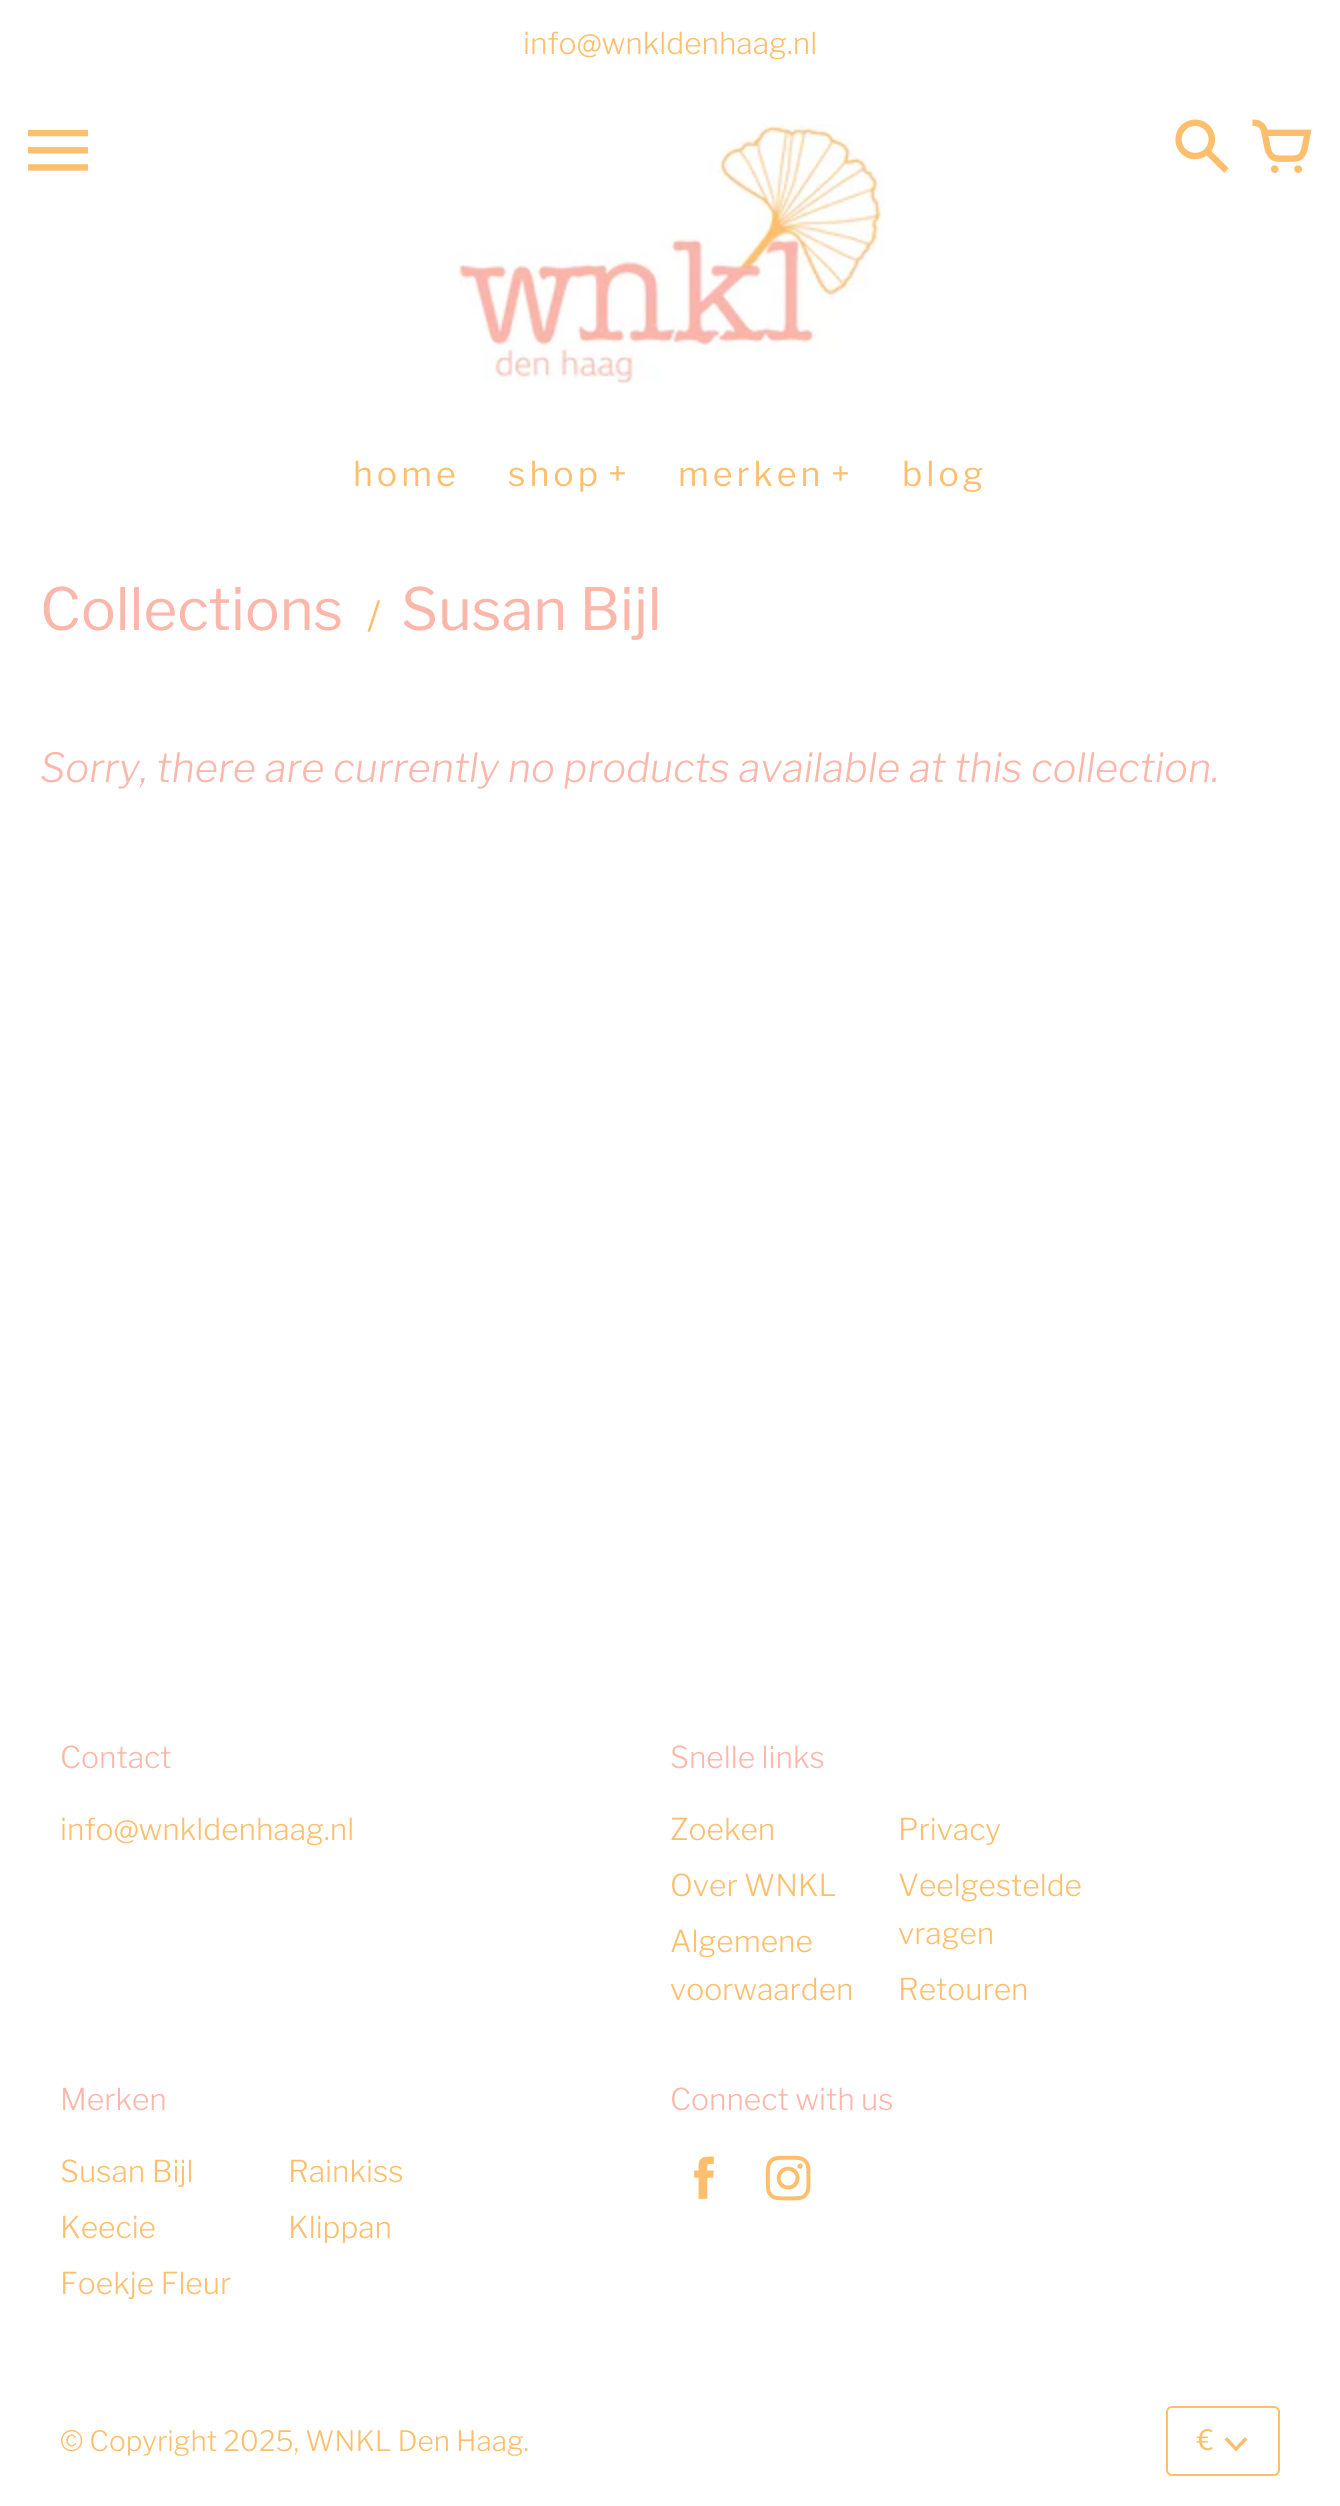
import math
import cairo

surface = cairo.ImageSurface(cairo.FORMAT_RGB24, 1340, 2506)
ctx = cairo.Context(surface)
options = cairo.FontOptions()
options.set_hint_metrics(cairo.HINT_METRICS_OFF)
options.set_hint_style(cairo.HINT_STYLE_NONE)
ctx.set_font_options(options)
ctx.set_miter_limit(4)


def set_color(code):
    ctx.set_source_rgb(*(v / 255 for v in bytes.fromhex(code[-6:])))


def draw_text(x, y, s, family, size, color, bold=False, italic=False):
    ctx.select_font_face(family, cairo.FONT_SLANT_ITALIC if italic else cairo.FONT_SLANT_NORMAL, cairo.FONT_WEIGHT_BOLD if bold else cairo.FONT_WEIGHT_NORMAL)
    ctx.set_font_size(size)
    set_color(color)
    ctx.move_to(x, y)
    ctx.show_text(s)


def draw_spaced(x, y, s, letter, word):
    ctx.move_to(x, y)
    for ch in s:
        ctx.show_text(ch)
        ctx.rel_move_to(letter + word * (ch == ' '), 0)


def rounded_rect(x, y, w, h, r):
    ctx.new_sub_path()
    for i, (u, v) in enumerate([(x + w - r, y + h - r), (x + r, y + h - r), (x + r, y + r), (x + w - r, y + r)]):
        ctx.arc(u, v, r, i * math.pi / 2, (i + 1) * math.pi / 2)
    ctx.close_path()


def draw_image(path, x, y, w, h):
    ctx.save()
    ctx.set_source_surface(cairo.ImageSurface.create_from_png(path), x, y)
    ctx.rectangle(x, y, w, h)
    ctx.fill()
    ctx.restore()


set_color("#ffffff")
ctx.paint()
draw_text(523, 54, "info@wnkldenhaag.nl", "Libre Franklin Light", 30, "#fdbf6d")
draw_text(28, 184, "1", "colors", 60, "#fdbf6d")
draw_image("assets/img1.png", 458, 124, 426, 260)
draw_text(1172, 180, "2", "colors", 60, "#fdbf6d")
draw_text(1252, 180, "3", "colors", 60, "#fdbf6d")
ctx.select_font_face("Libre Franklin")
ctx.set_font_size(34)
draw_spaced(353, 486, "home", 4, 0)
draw_spaced(508, 486, "shop", 4, 0)
draw_spaced(608, 486, "+", 4, 0)
draw_spaced(678, 486, "merken", 4, 0)
draw_spaced(831, 486, "+", 4, 0)
draw_spaced(902, 486, "blog", 4, 0)
draw_text(40, 630, "Collections", "Libre Franklin", 58, "#fcb6aa")
draw_text(367, 630, "/", "Libre Franklin", 40, "#fdbf6d")
draw_text(401, 630, "Susan Bijl", "Libre Franklin", 58, "#fcb6aa")
draw_text(40, 782, "Sorry, there are currently no products available at this collection.", "Libre Franklin Light", 40, "#fcb6aa", italic=True)
draw_text(60, 1768, "Contact", "Libre Franklin Light", 30, "#fcb6aa")
draw_text(60, 1840, "info@wnkldenhaag.nl", "Libre Franklin Light", 30, "#fdbf6d")
draw_text(670, 1768, "Snelle links", "Libre Franklin Light", 30, "#fcb6aa")
draw_text(670, 1840, "Zoeken", "Libre Franklin Light", 30, "#fdbf6d")
draw_text(670, 1896, "Over WNKL", "Libre Franklin Light", 30, "#fdbf6d")
draw_text(670, 1952, "Algemene", "Libre Franklin Light", 30, "#fdbf6d")
draw_text(670, 2000, "voorwaarden", "Libre Franklin Light", 30, "#fdbf6d")
draw_text(898, 1840, "Privacy", "Libre Franklin Light", 30, "#fdbf6d")
draw_text(898, 1896, "Veelgestelde", "Libre Franklin Light", 30, "#fdbf6d")
draw_text(898, 1944, "vragen", "Libre Franklin Light", 30, "#fdbf6d")
draw_text(898, 2000, "Retouren", "Libre Franklin Light", 30, "#fdbf6d")
draw_text(60, 2110, "Merken", "Libre Franklin Light", 30, "#fcb6aa")
draw_text(60, 2182, "Susan Bijl", "Libre Franklin Light", 30, "#fdbf6d")
draw_text(60, 2238, "Keecie", "Libre Franklin Light", 30, "#fdbf6d")
draw_text(60, 2294, "Foekje Fleur", "Libre Franklin Light", 30, "#fdbf6d")
draw_text(288, 2182, "Rainkiss", "Libre Franklin Light", 30, "#fdbf6d")
draw_text(288, 2238, "Klippan", "Libre Franklin Light", 30, "#fdbf6d")
draw_text(670, 2110, "Connect with us", "Libre Franklin Light", 30, "#fcb6aa")
draw_image("assets/img2.png", 694, 2156, 20, 43)
draw_image("assets/img3.png", 765, 2155, 46, 46)
draw_text(60, 2451, "© Copyright 2025, WNKL Den Haag.", "Libre Franklin Light", 28, "#fdbf6d")
rounded_rect(1167, 2407, 112, 68, 5)
ctx.stroke()
draw_text(1197, 2450, "€", "Libre Franklin", 28, "#fdbf6d")
ctx.new_path()
ctx.move_to(1245, 2437)
ctx.line_to(1236, 2446.5)
ctx.line_to(1227, 2437)
ctx.line_to(1224.5, 2439.5)
ctx.line_to(1236, 2451.5)
ctx.line_to(1247.5, 2439.5)
ctx.close_path()
ctx.fill()
surface.write_to_png("output.png")
